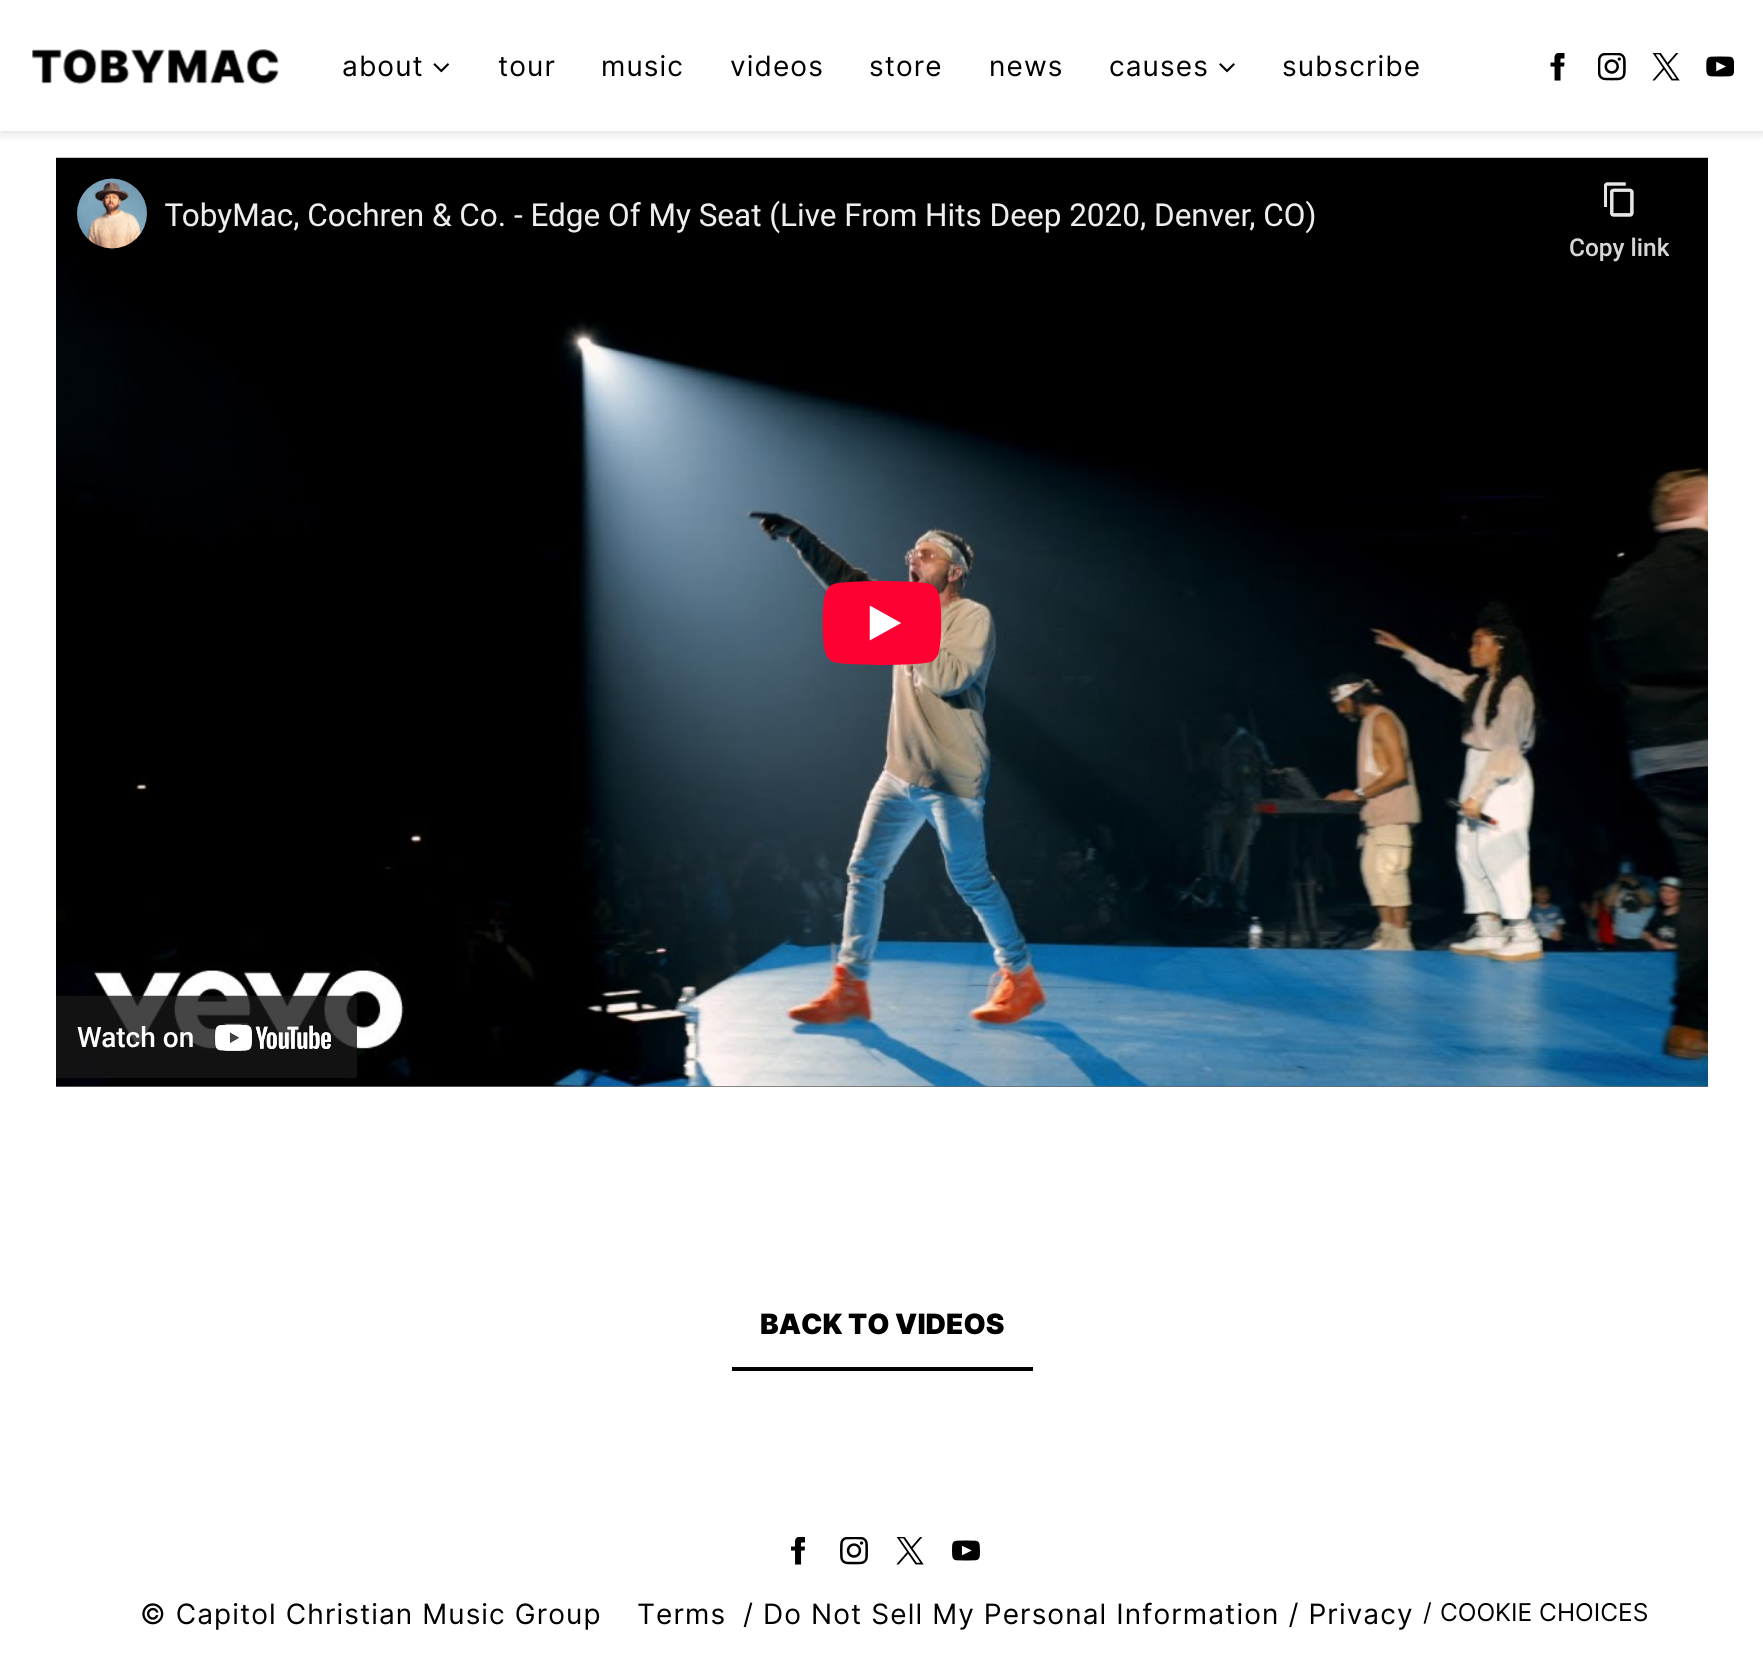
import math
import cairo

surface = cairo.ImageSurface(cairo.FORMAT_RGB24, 1763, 1676)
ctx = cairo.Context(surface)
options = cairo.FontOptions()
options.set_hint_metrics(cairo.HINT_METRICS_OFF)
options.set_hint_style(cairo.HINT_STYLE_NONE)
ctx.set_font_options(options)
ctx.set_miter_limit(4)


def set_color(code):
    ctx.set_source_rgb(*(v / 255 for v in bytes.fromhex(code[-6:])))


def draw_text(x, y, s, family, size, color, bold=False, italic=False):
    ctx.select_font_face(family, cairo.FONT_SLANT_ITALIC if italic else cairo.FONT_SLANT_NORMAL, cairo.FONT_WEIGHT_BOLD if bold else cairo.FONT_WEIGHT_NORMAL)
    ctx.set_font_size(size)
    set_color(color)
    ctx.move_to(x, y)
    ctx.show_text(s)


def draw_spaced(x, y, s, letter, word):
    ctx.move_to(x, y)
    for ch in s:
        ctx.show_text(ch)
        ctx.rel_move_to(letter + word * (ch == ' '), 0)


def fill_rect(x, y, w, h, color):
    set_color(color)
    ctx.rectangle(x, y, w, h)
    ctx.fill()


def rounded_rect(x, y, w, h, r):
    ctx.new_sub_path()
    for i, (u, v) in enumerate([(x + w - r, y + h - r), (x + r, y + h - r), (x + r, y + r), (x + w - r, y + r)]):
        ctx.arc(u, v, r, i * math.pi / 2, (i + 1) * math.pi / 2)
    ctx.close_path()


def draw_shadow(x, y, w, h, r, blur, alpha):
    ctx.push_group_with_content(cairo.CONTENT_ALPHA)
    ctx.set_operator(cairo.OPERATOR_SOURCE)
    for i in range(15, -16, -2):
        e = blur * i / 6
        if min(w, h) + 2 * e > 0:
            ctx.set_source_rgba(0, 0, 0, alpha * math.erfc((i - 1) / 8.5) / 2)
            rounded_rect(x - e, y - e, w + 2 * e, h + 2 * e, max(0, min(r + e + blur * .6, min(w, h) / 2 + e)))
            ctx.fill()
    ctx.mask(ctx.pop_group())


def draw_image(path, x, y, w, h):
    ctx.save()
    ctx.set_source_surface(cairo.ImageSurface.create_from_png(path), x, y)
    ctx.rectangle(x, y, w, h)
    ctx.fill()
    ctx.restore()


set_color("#ffffff")
ctx.paint()
set_color("#000000")
draw_shadow(0, 4, 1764, 131, 0, 3.5, 0.1)
fill_rect(0, 0, 1763, 131, "#ffffff")
draw_image("assets/img1.png", 32, 49, 247, 36)
ctx.select_font_face("Inter")
ctx.set_font_size(28)
set_color("#000000")
draw_spaced(342, 76, "about", 1.1, 0)
draw_image("assets/img2.png", 433, 63, 16, 10)
draw_spaced(498, 76, "tour", 1.1, 0)
draw_spaced(601, 76, "music", 1.1, 0)
draw_spaced(730, 76, "videos", 1.1, 0)
draw_spaced(869, 76, "store", 1.1, 0)
draw_spaced(989, 76, "news", 1.1, 0)
draw_spaced(1109, 76, "causes", 1.1, 0)
draw_image("assets/img3.png", 1219, 63, 16, 10)
draw_spaced(1282, 76, "subscribe", 1.1, 0)
draw_image("assets/img4.png", 1550, 53, 15, 28)
draw_image("assets/img5.png", 1598, 53, 28, 28)
draw_image("assets/img6.png", 1652, 53, 28, 28)
draw_image("assets/img7.png", 1706, 56, 28, 21)
draw_image("assets/img8.png", 56, 157, 1652, 930)
draw_text(760, 1334, "BACK TO VIDEOS", "Inter Black", 28, "#000000")
fill_rect(732, 1367, 301, 4, "#000000")
draw_image("assets/img9.png", 791, 1537, 14, 28)
draw_image("assets/img10.png", 840, 1537, 28, 28)
draw_image("assets/img6.png", 896, 1537, 28, 28)
draw_image("assets/img11.png", 952, 1540, 28, 21)
ctx.select_font_face("Inter")
draw_spaced(140, 1624, "© Capitol Christian Music Group", 1.1, 0)
draw_spaced(637, 1624, "Terms", 1.1, 0)
draw_spaced(743, 1624, "/ Do Not Sell My Personal Information / Privacy", 1.1, 0)
draw_text(1423, 1621, "/", "Inter", 24.5, "#000000")
draw_text(1440, 1621, "COOKIE CHOICES", "Inter", 24.5, "#000000")
surface.write_to_png("output.png")
